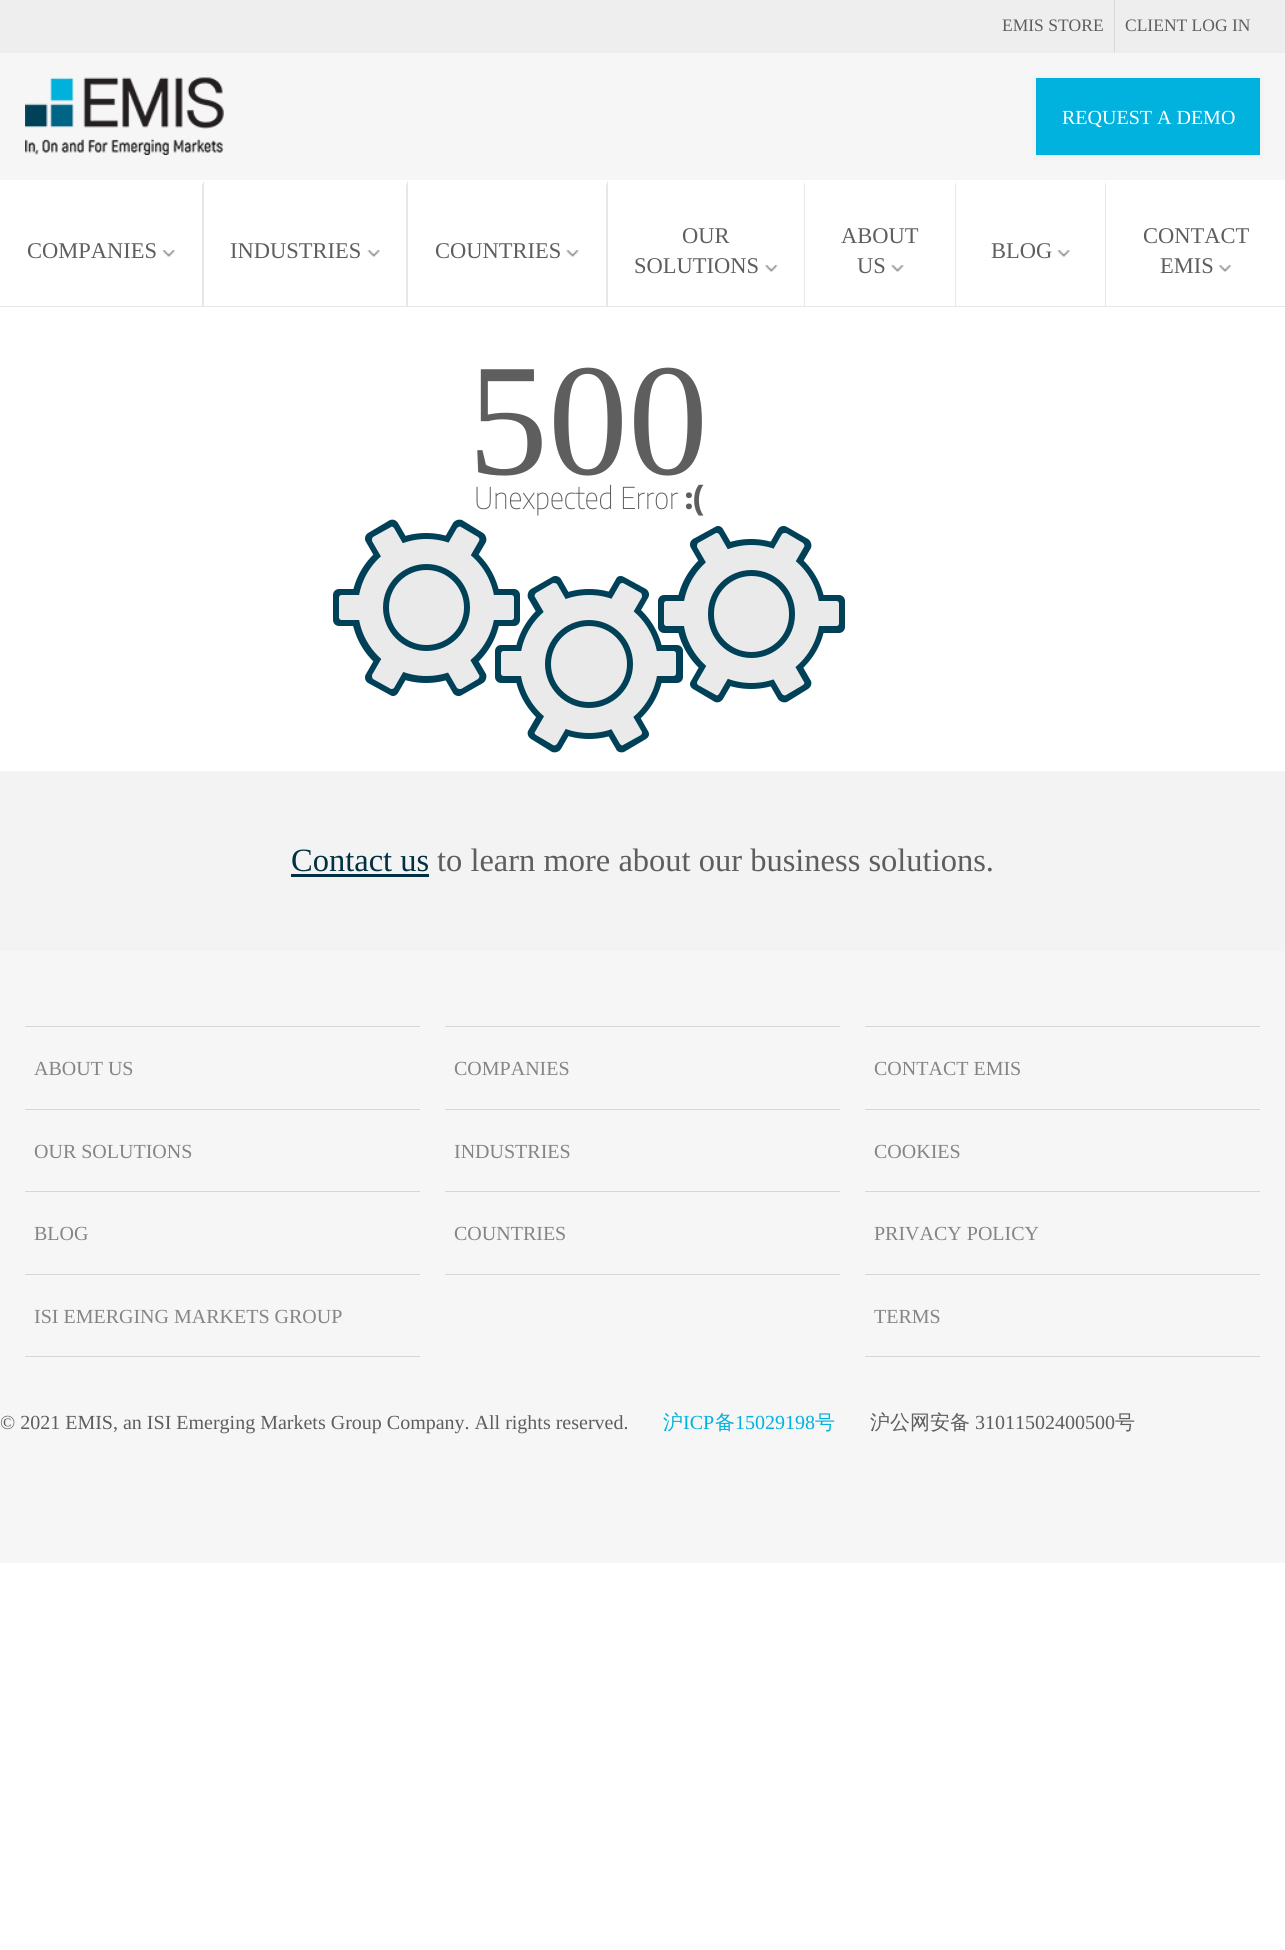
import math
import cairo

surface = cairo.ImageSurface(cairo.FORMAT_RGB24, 1285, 1950)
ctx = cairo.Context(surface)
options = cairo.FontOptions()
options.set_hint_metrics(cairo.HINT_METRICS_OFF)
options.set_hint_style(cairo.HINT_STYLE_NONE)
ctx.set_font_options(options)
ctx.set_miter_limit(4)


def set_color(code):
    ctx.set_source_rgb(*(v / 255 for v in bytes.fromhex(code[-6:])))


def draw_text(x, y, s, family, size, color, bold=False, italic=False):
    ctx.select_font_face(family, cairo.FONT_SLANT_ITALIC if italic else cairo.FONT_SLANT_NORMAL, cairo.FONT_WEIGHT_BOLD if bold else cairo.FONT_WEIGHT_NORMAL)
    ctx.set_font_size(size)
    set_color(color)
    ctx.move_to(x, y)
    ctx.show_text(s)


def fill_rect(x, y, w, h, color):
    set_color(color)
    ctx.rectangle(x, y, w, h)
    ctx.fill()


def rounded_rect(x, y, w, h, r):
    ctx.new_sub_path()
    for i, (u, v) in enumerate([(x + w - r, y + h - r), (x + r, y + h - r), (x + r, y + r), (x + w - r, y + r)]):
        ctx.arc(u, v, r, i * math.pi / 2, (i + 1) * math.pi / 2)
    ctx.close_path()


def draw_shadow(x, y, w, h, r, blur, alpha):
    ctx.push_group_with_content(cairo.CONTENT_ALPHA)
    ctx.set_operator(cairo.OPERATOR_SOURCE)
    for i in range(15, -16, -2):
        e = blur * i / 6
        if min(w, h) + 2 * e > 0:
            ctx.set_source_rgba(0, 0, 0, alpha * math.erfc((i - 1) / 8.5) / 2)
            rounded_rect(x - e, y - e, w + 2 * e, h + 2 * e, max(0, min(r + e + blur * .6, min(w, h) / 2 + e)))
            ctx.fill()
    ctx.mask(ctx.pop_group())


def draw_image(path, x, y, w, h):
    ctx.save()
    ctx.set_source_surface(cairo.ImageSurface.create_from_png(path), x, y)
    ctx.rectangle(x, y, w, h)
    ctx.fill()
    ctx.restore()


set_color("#ffffff")
ctx.paint()
fill_rect(0, 0, 1285, 53, "#eeeeee")
fill_rect(1114, 0, 1, 53, "#d9d9d9")
draw_text(1002, 31, "EMIS STORE", "Liberation Serif", 17.5, "#5e5e5e")
draw_text(1125, 31, "CLIENT LOG IN", "Liberation Serif", 17.5, "#5e5e5e")
fill_rect(0, 53, 1285, 127, "#f6f6f6")
draw_image("assets/img1.png", 25, 77, 199, 78)
set_color("#eaeaea")
draw_shadow(1036, 79, 224, 77, 0, 3, 1)
fill_rect(1036, 78, 224, 77, "#00b2dd")
draw_text(1062, 124, "REQUEST A DEMO", "Liberation Serif", 20, "#ffffff")
fill_rect(0, 306, 1285, 1, "#e7e7e7")
ctx.new_path()
ctx.move_to(204, 180)
ctx.line_to(204, 306)
ctx.line_to(202, 306)
ctx.line_to(202, 186)
ctx.close_path()
ctx.fill()
draw_text(27, 258, "COMPANIES", "Liberation Serif", 22.5, "#5e5e5e")
draw_image("assets/img2.png", 162, 250, 13, 8)
set_color("#e7e7e7")
ctx.new_path()
ctx.move_to(408, 180)
ctx.line_to(408, 306)
ctx.line_to(406, 306)
ctx.line_to(406, 186)
ctx.close_path()
ctx.fill()
draw_text(230, 258, "INDUSTRIES", "Liberation Serif", 22.5, "#5e5e5e")
draw_image("assets/img3.png", 367, 250, 13, 8)
set_color("#e7e7e7")
ctx.new_path()
ctx.move_to(608, 180)
ctx.line_to(608, 306)
ctx.line_to(606, 306)
ctx.line_to(606, 186)
ctx.close_path()
ctx.fill()
draw_text(435, 258, "COUNTRIES", "Liberation Serif", 22.5, "#5e5e5e")
draw_image("assets/img4.png", 566, 250, 13, 7)
set_color("#e7e7e7")
ctx.new_path()
ctx.move_to(805, 180)
ctx.line_to(805, 306)
ctx.line_to(804, 306)
ctx.line_to(804, 186)
ctx.close_path()
ctx.fill()
draw_text(682, 243, "OUR", "Liberation Serif", 22.5, "#5e5e5e")
draw_text(634, 273, "SOLUTIONS", "Liberation Serif", 22.5, "#5e5e5e")
draw_image("assets/img5.png", 765, 265, 13, 8)
set_color("#e7e7e7")
ctx.new_path()
ctx.move_to(956, 180)
ctx.line_to(956, 306)
ctx.line_to(955, 306)
ctx.line_to(955, 186)
ctx.close_path()
ctx.fill()
draw_text(841, 243, "ABOUT", "Liberation Serif", 22.5, "#5e5e5e")
draw_text(857, 273, "US", "Liberation Serif", 22.5, "#5e5e5e")
draw_image("assets/img4.png", 891, 265, 13, 7)
set_color("#e7e7e7")
ctx.new_path()
ctx.move_to(1106, 180)
ctx.line_to(1106, 306)
ctx.line_to(1105, 306)
ctx.line_to(1105, 186)
ctx.close_path()
ctx.fill()
draw_text(991, 258, "BLOG", "Liberation Serif", 22.5, "#5e5e5e")
draw_image("assets/img3.png", 1057, 250, 13, 8)
draw_text(1143, 243, "CONTACT", "Liberation Serif", 22.5, "#5e5e5e")
draw_text(1160, 273, "EMIS", "Liberation Serif", 22.5, "#5e5e5e")
draw_image("assets/img6.png", 1218, 265, 14, 7)
draw_text(468, 474, "500", "Liberation Serif", 160, "#5e5e5e")
draw_text(474, 509, "Unexpected Error", "Encode Sans Semi Condensed ExtraLight", 30, "#5e5e5e")
draw_text(685, 509, ":(", "Encode Sans Semi Condensed", 30, "#5e5e5e", bold=True)
set_color("#004158")
ctx.new_path()
ctx.arc(426, 608, 75, 0, 2 * math.pi)
ctx.fill()
rounded_rect(333, 589, 187, 37, 6)
ctx.fill()
set_color("#eaeaea")
rounded_rect(339, 595, 175, 25, 2.5)
ctx.fill()
set_color("#004158")
ctx.new_path()
ctx.move_to(398, 523)
ctx.line_to(486, 674)
ctx.curve_to(487, 677, 486, 681, 483, 683)
ctx.line_to(462, 695)
ctx.curve_to(459, 697, 455, 696, 453, 693)
ctx.line_to(366, 542)
ctx.curve_to(364, 539, 365, 535, 368, 533)
ctx.line_to(390, 520)
ctx.curve_to(393, 519, 396, 520, 398, 523)
ctx.close_path()
ctx.fill()
set_color("#eaeaea")
ctx.new_path()
ctx.move_to(394, 528)
ctx.line_to(479, 675)
ctx.curve_to(480, 676, 479, 678, 478, 679)
ctx.line_to(461, 689)
ctx.curve_to(460, 689, 458, 689, 457, 688)
ctx.line_to(372, 541)
ctx.curve_to(372, 539, 372, 538, 373, 537)
ctx.line_to(391, 527)
ctx.curve_to(392, 526, 393, 527, 394, 528)
ctx.close_path()
ctx.fill()
set_color("#004158")
ctx.new_path()
ctx.move_to(486, 542)
ctx.line_to(398, 693)
ctx.curve_to(396, 696, 393, 697, 390, 695)
ctx.line_to(368, 683)
ctx.curve_to(365, 681, 364, 677, 366, 674)
ctx.line_to(453, 523)
ctx.curve_to(455, 520, 459, 519, 462, 520)
ctx.line_to(483, 533)
ctx.curve_to(486, 535, 487, 539, 486, 542)
ctx.close_path()
ctx.fill()
set_color("#eaeaea")
ctx.new_path()
ctx.move_to(479, 541)
ctx.line_to(394, 688)
ctx.curve_to(393, 689, 392, 689, 391, 689)
ctx.line_to(373, 679)
ctx.curve_to(372, 678, 372, 676, 372, 675)
ctx.line_to(457, 528)
ctx.curve_to(458, 527, 460, 526, 461, 527)
ctx.line_to(478, 537)
ctx.curve_to(479, 538, 480, 539, 479, 541)
ctx.close_path()
ctx.fill()
ctx.arc(426.5, 607.5, 68.5, 0, 2 * math.pi)
ctx.fill()
ctx.arc(426.5, 607.5, 40.5, 0, 2 * math.pi)
set_color("#004158")
ctx.set_line_width(6)
ctx.stroke()
ctx.arc(589, 664, 75, 0, 2 * math.pi)
ctx.fill()
rounded_rect(495, 645, 188, 38, 6)
ctx.fill()
set_color("#eaeaea")
rounded_rect(501, 651, 175, 25, 2.5)
ctx.fill()
set_color("#004158")
ctx.new_path()
ctx.move_to(561, 579)
ctx.line_to(648, 731)
ctx.curve_to(650, 734, 649, 737, 646, 739)
ctx.line_to(624, 752)
ctx.curve_to(621, 753, 617, 752, 616, 749)
ctx.line_to(528, 598)
ctx.curve_to(527, 595, 528, 591, 531, 589)
ctx.line_to(552, 577)
ctx.curve_to(555, 575, 559, 576, 561, 579)
ctx.close_path()
ctx.fill()
set_color("#eaeaea")
ctx.new_path()
ctx.move_to(557, 584)
ctx.line_to(642, 732)
ctx.curve_to(642, 733, 642, 734, 641, 735)
ctx.line_to(623, 745)
ctx.curve_to(622, 746, 621, 745, 620, 744)
ctx.line_to(535, 597)
ctx.curve_to(534, 596, 535, 594, 536, 593)
ctx.line_to(553, 583)
ctx.curve_to(554, 583, 556, 583, 557, 584)
ctx.close_path()
ctx.fill()
set_color("#004158")
ctx.new_path()
ctx.move_to(648, 598)
ctx.line_to(561, 749)
ctx.curve_to(559, 752, 555, 753, 552, 752)
ctx.line_to(531, 739)
ctx.curve_to(528, 737, 527, 734, 528, 731)
ctx.line_to(616, 579)
ctx.curve_to(617, 576, 621, 575, 624, 577)
ctx.line_to(646, 589)
ctx.curve_to(649, 591, 650, 595, 648, 598)
ctx.close_path()
ctx.fill()
set_color("#eaeaea")
ctx.new_path()
ctx.move_to(642, 597)
ctx.line_to(557, 744)
ctx.curve_to(556, 745, 554, 746, 553, 745)
ctx.line_to(536, 735)
ctx.curve_to(535, 734, 534, 733, 535, 732)
ctx.line_to(620, 584)
ctx.curve_to(621, 583, 622, 583, 623, 583)
ctx.line_to(641, 593)
ctx.curve_to(642, 594, 642, 596, 642, 597)
ctx.close_path()
ctx.fill()
ctx.arc(589, 664, 69, 0, 2 * math.pi)
ctx.fill()
ctx.arc(589, 664, 41, 0, 2 * math.pi)
set_color("#004158")
ctx.stroke()
ctx.arc(751, 614, 75, 0, 2 * math.pi)
ctx.fill()
rounded_rect(658, 595, 187, 38, 6)
ctx.fill()
set_color("#eaeaea")
rounded_rect(664, 601, 175, 25, 2.5)
ctx.fill()
set_color("#004158")
ctx.new_path()
ctx.move_to(723, 529)
ctx.line_to(811, 681)
ctx.curve_to(812, 684, 811, 687, 808, 689)
ctx.line_to(787, 702)
ctx.curve_to(784, 703, 780, 702, 778, 699)
ctx.line_to(691, 548)
ctx.curve_to(689, 545, 690, 541, 693, 539)
ctx.line_to(715, 527)
ctx.curve_to(718, 525, 721, 526, 723, 529)
ctx.close_path()
ctx.fill()
set_color("#eaeaea")
ctx.new_path()
ctx.move_to(719, 534)
ctx.line_to(804, 682)
ctx.curve_to(805, 683, 804, 684, 803, 685)
ctx.line_to(786, 695)
ctx.curve_to(785, 696, 783, 695, 782, 694)
ctx.line_to(697, 547)
ctx.curve_to(697, 546, 697, 544, 698, 543)
ctx.line_to(716, 533)
ctx.curve_to(717, 533, 718, 533, 719, 534)
ctx.close_path()
ctx.fill()
set_color("#004158")
ctx.new_path()
ctx.move_to(811, 548)
ctx.line_to(723, 699)
ctx.curve_to(721, 702, 718, 703, 715, 702)
ctx.line_to(693, 689)
ctx.curve_to(690, 687, 689, 684, 691, 681)
ctx.line_to(778, 529)
ctx.curve_to(780, 526, 784, 525, 787, 527)
ctx.line_to(808, 539)
ctx.curve_to(811, 541, 812, 545, 811, 548)
ctx.close_path()
ctx.fill()
set_color("#eaeaea")
ctx.new_path()
ctx.move_to(804, 547)
ctx.line_to(719, 694)
ctx.curve_to(718, 695, 717, 696, 716, 695)
ctx.line_to(698, 685)
ctx.curve_to(697, 684, 697, 683, 697, 682)
ctx.line_to(782, 534)
ctx.curve_to(783, 533, 785, 533, 786, 533)
ctx.line_to(803, 543)
ctx.curve_to(804, 544, 805, 546, 804, 547)
ctx.close_path()
ctx.fill()
rounded_rect(683, 545, 137, 138, 68.5)
ctx.fill()
rounded_rect(711, 573, 81, 82, 40.5)
set_color("#004158")
ctx.stroke()
fill_rect(0, 771, 1285, 180, "#f3f3f3")
draw_text(291, 871, "Contact us", "Liberation Serif", 32.5, "#003041")
fill_rect(291, 874, 138, 3, "#003041")
draw_text(437, 871, "to learn more about our business solutions.", "Liberation Serif", 32.5, "#5e5e5e")
fill_rect(0, 951, 1285, 612, "#f6f6f6")
fill_rect(25, 1026, 395, 1, "#d6d6d6")
fill_rect(25, 1109, 395, 1, "#d6d6d6")
draw_text(34, 1075, "ABOUT US", "Liberation Serif", 20, "#858585")
fill_rect(25, 1191, 395, 1, "#d6d6d6")
draw_text(34, 1158, "OUR SOLUTIONS", "Liberation Serif", 20, "#858585")
fill_rect(25, 1274, 395, 1, "#d6d6d6")
draw_text(34, 1240, "BLOG", "Liberation Serif", 20, "#858585")
fill_rect(25, 1356, 395, 1, "#d6d6d6")
draw_text(34, 1323, "ISI EMERGING MARKETS GROUP", "Liberation Serif", 20, "#858585")
fill_rect(445, 1026, 395, 1, "#d6d6d6")
fill_rect(445, 1109, 395, 1, "#d6d6d6")
draw_text(454, 1075, "COMPANIES", "Liberation Serif", 20, "#858585")
fill_rect(445, 1191, 395, 1, "#d6d6d6")
draw_text(454, 1158, "INDUSTRIES", "Liberation Serif", 20, "#858585")
fill_rect(445, 1274, 395, 1, "#d6d6d6")
draw_text(454, 1240, "COUNTRIES", "Liberation Serif", 20, "#858585")
fill_rect(865, 1026, 395, 1, "#d6d6d6")
fill_rect(865, 1109, 395, 1, "#d6d6d6")
draw_text(874, 1075, "CONTACT EMIS", "Liberation Serif", 20, "#858585")
fill_rect(865, 1191, 395, 1, "#d6d6d6")
draw_text(874, 1158, "COOKIES", "Liberation Serif", 20, "#858585")
fill_rect(865, 1274, 395, 1, "#d6d6d6")
draw_text(874, 1240, "PRIVACY POLICY", "Liberation Serif", 20, "#858585")
fill_rect(865, 1356, 395, 1, "#d6d6d6")
draw_text(874, 1323, "TERMS", "Liberation Serif", 20, "#858585")
draw_text(0, 1429, "© 2021 EMIS, an ISI Emerging Markets Group Company. All rights reserved.", "Liberation Serif", 20, "#5e5e5e")
draw_text(663, 1429, "沪", "WenQuanYi Zen Hei Medium", 20, "#00b2dd")
draw_text(683, 1429, "ICP", "Liberation Serif", 20, "#00b2dd")
draw_text(715, 1429, "备", "WenQuanYi Zen Hei Medium", 20, "#00b2dd")
draw_text(735, 1429, "15029198", "Liberation Serif", 20, "#00b2dd")
draw_text(815, 1429, "号", "WenQuanYi Zen Hei Medium", 20, "#00b2dd")
draw_text(870, 1429, "沪公网安备", "WenQuanYi Zen Hei Medium", 20, "#5e5e5e")
draw_text(975, 1429, "31011502400500", "Liberation Serif", 20, "#5e5e5e")
draw_text(1115, 1429, "号", "WenQuanYi Zen Hei Medium", 20, "#5e5e5e")
surface.write_to_png("output.png")
